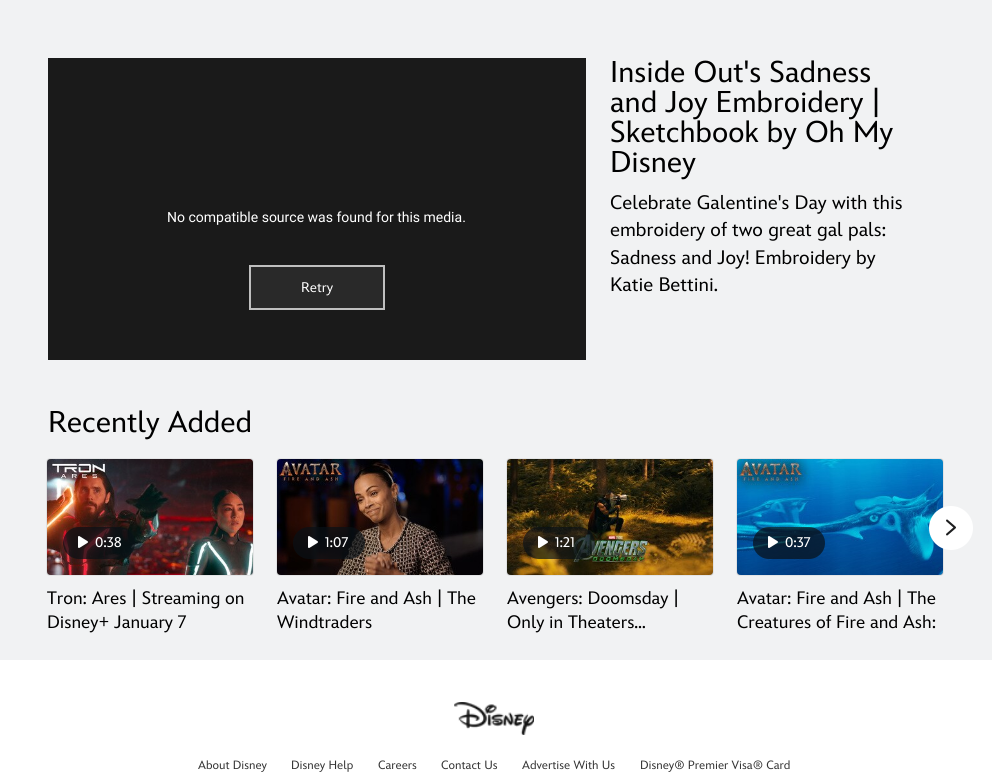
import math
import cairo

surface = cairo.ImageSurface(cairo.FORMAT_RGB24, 992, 774)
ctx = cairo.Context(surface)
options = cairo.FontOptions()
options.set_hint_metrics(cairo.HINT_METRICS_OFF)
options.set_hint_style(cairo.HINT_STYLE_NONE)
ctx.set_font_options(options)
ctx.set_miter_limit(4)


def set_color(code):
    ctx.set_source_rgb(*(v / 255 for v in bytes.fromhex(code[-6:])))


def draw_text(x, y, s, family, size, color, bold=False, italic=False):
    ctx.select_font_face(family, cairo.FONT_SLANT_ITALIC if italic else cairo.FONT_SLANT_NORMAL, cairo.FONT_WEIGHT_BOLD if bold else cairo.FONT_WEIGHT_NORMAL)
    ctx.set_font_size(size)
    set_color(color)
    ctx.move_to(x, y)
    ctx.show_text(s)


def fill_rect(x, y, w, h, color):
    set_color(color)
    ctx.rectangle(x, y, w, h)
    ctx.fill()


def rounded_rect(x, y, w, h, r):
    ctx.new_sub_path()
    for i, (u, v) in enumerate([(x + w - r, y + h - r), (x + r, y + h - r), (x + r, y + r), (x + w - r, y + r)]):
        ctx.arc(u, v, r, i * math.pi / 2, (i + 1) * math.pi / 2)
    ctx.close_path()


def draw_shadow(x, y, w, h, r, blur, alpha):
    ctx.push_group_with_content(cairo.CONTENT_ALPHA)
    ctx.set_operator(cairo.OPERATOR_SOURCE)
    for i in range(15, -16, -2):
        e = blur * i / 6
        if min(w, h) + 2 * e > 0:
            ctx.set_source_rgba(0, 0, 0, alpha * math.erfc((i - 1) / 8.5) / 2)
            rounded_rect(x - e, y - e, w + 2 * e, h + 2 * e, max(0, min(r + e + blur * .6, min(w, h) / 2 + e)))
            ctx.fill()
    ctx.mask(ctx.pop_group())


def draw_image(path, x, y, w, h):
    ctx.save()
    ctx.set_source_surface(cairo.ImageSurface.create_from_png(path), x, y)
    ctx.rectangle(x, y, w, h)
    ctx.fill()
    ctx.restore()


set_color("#f1f2f3")
ctx.paint()
fill_rect(48, 58, 538, 302, "#1a1a1a")
draw_text(167, 222, "No compatible source was found for this media.", "Roboto", 14, "#ffffff")
set_color("#292929")
ctx.rectangle(250, 266, 134, 43)
ctx.fill_preserve()
set_color("#bfbfbf")
ctx.stroke()
draw_text(301, 292, "Retry", "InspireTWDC", 14, "#ffffff")
draw_text(610, 82, "Inside Out's Sadness", "InspireTWDC", 30, "#000000")
draw_text(610, 112, "and Joy Embroidery |", "InspireTWDC", 30, "#000000")
draw_text(610, 142, "Sketchbook by Oh My", "InspireTWDC", 30, "#000000")
draw_text(610, 172, "Disney", "InspireTWDC", 30, "#000000")
draw_text(610, 209, "Celebrate Galentine's Day with this", "InspireTWDC", 19.5, "#000000")
draw_text(610, 236, "embroidery of two great gal pals:", "InspireTWDC", 19.5, "#000000")
draw_text(610, 264, "Sadness and Joy! Embroidery by", "InspireTWDC", 19.5, "#000000")
draw_text(610, 291, "Katie Bettini.", "InspireTWDC", 19.5, "#000000")
draw_text(48, 432, "Recently Added", "InspireTWDC", 30, "#000000")
set_color("#000000")
draw_shadow(737, 459, 206, 116, 2, 0.5, 0.25)
draw_image("assets/img8.png", 737, 459, 206, 116)
set_color("#ffffff")
ctx.arc(951, 528, 22, 0, 2 * math.pi)
ctx.fill()
draw_image("assets/img1.png", 946, 519, 10, 17)
set_color("#000000")
draw_shadow(47, 459, 206, 116, 2, 0.5, 0.25)
draw_image("assets/img2.png", 47, 459, 206, 116)
ctx.set_source_rgba(0.039, 0.063, 0.086, 0.7)
rounded_rect(63, 527, 72, 32, 16)
ctx.fill()
draw_image("assets/img3.png", 78, 536, 10, 12)
draw_text(95, 547, "0:38", "InspireTWDC Medium", 14, "#ffffff")
draw_text(47, 604, "Tron: Ares | Streaming on", "InspireTWDC", 18, "#000000")
draw_text(47, 628, "Disney+ January 7", "InspireTWDC", 18, "#000000")
set_color("#000000")
draw_shadow(277, 459, 206, 116, 2, 0.5, 0.25)
draw_image("assets/img4.png", 277, 459, 206, 116)
ctx.set_source_rgba(0.039, 0.063, 0.086, 0.7)
rounded_rect(293, 527, 72, 32, 16)
ctx.fill()
draw_image("assets/img5.png", 308, 536, 10, 12)
draw_text(325, 547, "1:07", "InspireTWDC Medium", 14, "#ffffff")
draw_text(277, 604, "Avatar: Fire and Ash | The", "InspireTWDC", 18, "#000000")
draw_text(277, 628, "Windtraders", "InspireTWDC", 18, "#000000")
set_color("#000000")
draw_shadow(507, 459, 206, 116, 2, 0.5, 0.25)
draw_image("assets/img6.png", 507, 459, 206, 116)
ctx.set_source_rgba(0.039, 0.063, 0.086, 0.7)
rounded_rect(523, 527, 72, 32, 16)
ctx.fill()
draw_image("assets/img7.png", 538, 536, 10, 12)
draw_text(555, 547, "1:21", "InspireTWDC Medium", 14, "#ffffff")
draw_text(507, 604, "Avengers: Doomsday |", "InspireTWDC", 18, "#000000")
draw_text(507, 628, "Only in Theaters…", "InspireTWDC", 18, "#000000")
ctx.set_source_rgba(0.039, 0.063, 0.086, 0.7)
rounded_rect(753, 527, 72, 32, 16)
ctx.fill()
draw_image("assets/img9.png", 768, 536, 10, 12)
draw_text(785, 547, "0:37", "InspireTWDC Medium", 14, "#ffffff")
draw_text(737, 604, "Avatar: Fire and Ash | The", "InspireTWDC", 18, "#000000")
draw_text(737, 628, "Creatures of Fire and Ash:", "InspireTWDC", 18, "#000000")
fill_rect(0, 660, 992, 114, "#ffffff")
draw_image("assets/img10.png", 454, 702, 80, 33)
draw_text(198, 769, "About Disney", "InspireTWDC", 12, "#333333")
draw_text(291, 769, "Disney Help", "InspireTWDC", 12, "#333333")
draw_text(378, 769, "Careers", "InspireTWDC", 12, "#333333")
draw_text(441, 769, "Contact Us", "InspireTWDC", 12, "#333333")
draw_text(522, 769, "Advertise With Us", "InspireTWDC", 12, "#333333")
draw_text(640, 769, "Disney® Premier Visa® Card", "InspireTWDC", 12, "#333333")
surface.write_to_png("output.png")
